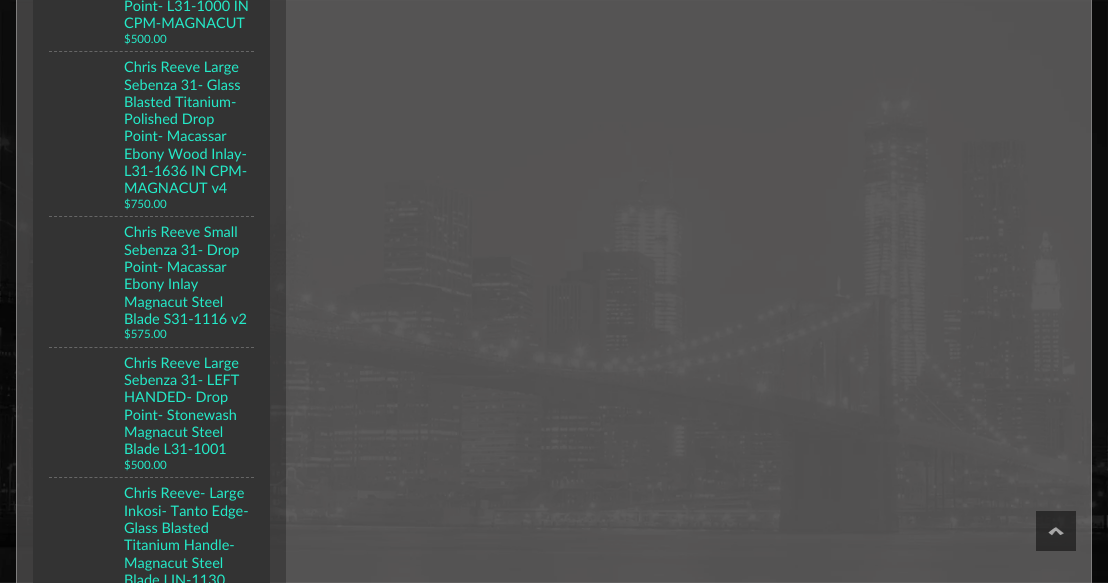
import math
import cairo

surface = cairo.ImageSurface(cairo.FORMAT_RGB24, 1108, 583)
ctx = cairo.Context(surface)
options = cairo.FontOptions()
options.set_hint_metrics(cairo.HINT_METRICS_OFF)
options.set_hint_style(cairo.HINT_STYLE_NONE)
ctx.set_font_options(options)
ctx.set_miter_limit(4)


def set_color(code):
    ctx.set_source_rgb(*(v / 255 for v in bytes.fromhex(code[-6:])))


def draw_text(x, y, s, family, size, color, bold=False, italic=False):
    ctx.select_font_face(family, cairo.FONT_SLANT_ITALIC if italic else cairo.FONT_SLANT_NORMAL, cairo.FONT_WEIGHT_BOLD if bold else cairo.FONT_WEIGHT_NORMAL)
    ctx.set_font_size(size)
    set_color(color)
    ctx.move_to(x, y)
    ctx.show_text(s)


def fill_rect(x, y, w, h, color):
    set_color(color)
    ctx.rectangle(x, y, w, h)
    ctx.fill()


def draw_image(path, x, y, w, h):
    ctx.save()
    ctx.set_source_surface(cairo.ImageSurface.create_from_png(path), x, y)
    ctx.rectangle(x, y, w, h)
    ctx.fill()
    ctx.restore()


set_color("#ffffff")
ctx.paint()
draw_image("assets/img1.png", 0, 0, 1108, 583)
ctx.rectangle(16.5, -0.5, 1075, 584)
ctx.set_source_rgba(0.569, 0.561, 0.561, 0.7)
ctx.set_line_width(1)
ctx.stroke()
ctx.set_source_rgba(0, 0, 0, 0.25)
ctx.rectangle(17, 0, 269, 583)
ctx.fill()
fill_rect(33, 0, 237, 583, "#333333")
draw_text(124, 11, "Point- L31-1000 IN", "Lato", 14.5, "#24eac8")
draw_text(124, 28, "CPM-MAGNACUT", "Lato", 14.5, "#24eac8")
draw_text(124, 43, "$500.00", "Lato", 11.5, "#24eac8")
ctx.new_path()
ctx.move_to(49, 51.5)
ctx.line_to(254, 51.5)
set_color("#666666")
ctx.set_dash([3, 2.05])
ctx.stroke()
draw_text(124, 72, "Chris Reeve Large", "Lato", 14.5, "#24eac8")
draw_text(124, 90, "Sebenza 31- Glass", "Lato", 14.5, "#24eac8")
draw_text(124, 107, "Blasted Titanium-", "Lato", 14.5, "#24eac8")
draw_text(124, 124, "Polished Drop", "Lato", 14.5, "#24eac8")
draw_text(124, 141, "Point- Macassar", "Lato", 14.5, "#24eac8")
draw_text(124, 159, "Ebony Wood Inlay-", "Lato", 14.5, "#24eac8")
draw_text(124, 176, "L31-1636 IN CPM-", "Lato", 14.5, "#24eac8")
draw_text(124, 193, "MAGNACUT v4", "Lato", 14.5, "#24eac8")
draw_text(124, 208, "$750.00", "Lato", 11.5, "#24eac8")
ctx.new_path()
ctx.move_to(49, 216.5)
ctx.line_to(254, 216.5)
set_color("#666666")
ctx.stroke()
draw_text(124, 237, "Chris Reeve Small", "Lato", 14.5, "#24eac8")
draw_text(124, 255, "Sebenza 31- Drop", "Lato", 14.5, "#24eac8")
draw_text(124, 272, "Point- Macassar", "Lato", 14.5, "#24eac8")
draw_text(124, 289, "Ebony Inlay", "Lato", 14.5, "#24eac8")
draw_text(124, 307, "Magnacut Steel", "Lato", 14.5, "#24eac8")
draw_text(124, 324, "Blade S31-1116 v2", "Lato", 14.5, "#24eac8")
draw_text(124, 338, "$575.00", "Lato", 11.5, "#24eac8")
ctx.new_path()
ctx.move_to(49, 347.5)
ctx.line_to(254, 347.5)
set_color("#666666")
ctx.stroke()
draw_text(124, 368, "Chris Reeve Large", "Lato", 14.5, "#24eac8")
draw_text(124, 385, "Sebenza 31- LEFT", "Lato", 14.5, "#24eac8")
draw_text(124, 402, "HANDED- Drop", "Lato", 14.5, "#24eac8")
draw_text(124, 420, "Point- Stonewash", "Lato", 14.5, "#24eac8")
draw_text(124, 437, "Magnacut Steel", "Lato", 14.5, "#24eac8")
draw_text(124, 454, "Blade L31-1001", "Lato", 14.5, "#24eac8")
draw_text(124, 469, "$500.00", "Lato", 11.5, "#24eac8")
ctx.new_path()
ctx.move_to(49, 477.5)
ctx.line_to(254, 477.5)
set_color("#666666")
ctx.stroke()
draw_text(124, 498, "Chris Reeve- Large", "Lato", 14.5, "#24eac8")
draw_text(124, 516, "Inkosi- Tanto Edge-", "Lato", 14.5, "#24eac8")
draw_text(124, 533, "Glass Blasted", "Lato", 14.5, "#24eac8")
draw_text(124, 550, "Titanium Handle-", "Lato", 14.5, "#24eac8")
draw_text(124, 568, "Magnacut Steel", "Lato", 14.5, "#24eac8")
draw_text(124, 585, "Blade LIN-1130", "Lato", 14.5, "#24eac8")
draw_image("assets/img2.png", 1036, 511, 40, 40)
surface.write_to_png("output.png")
